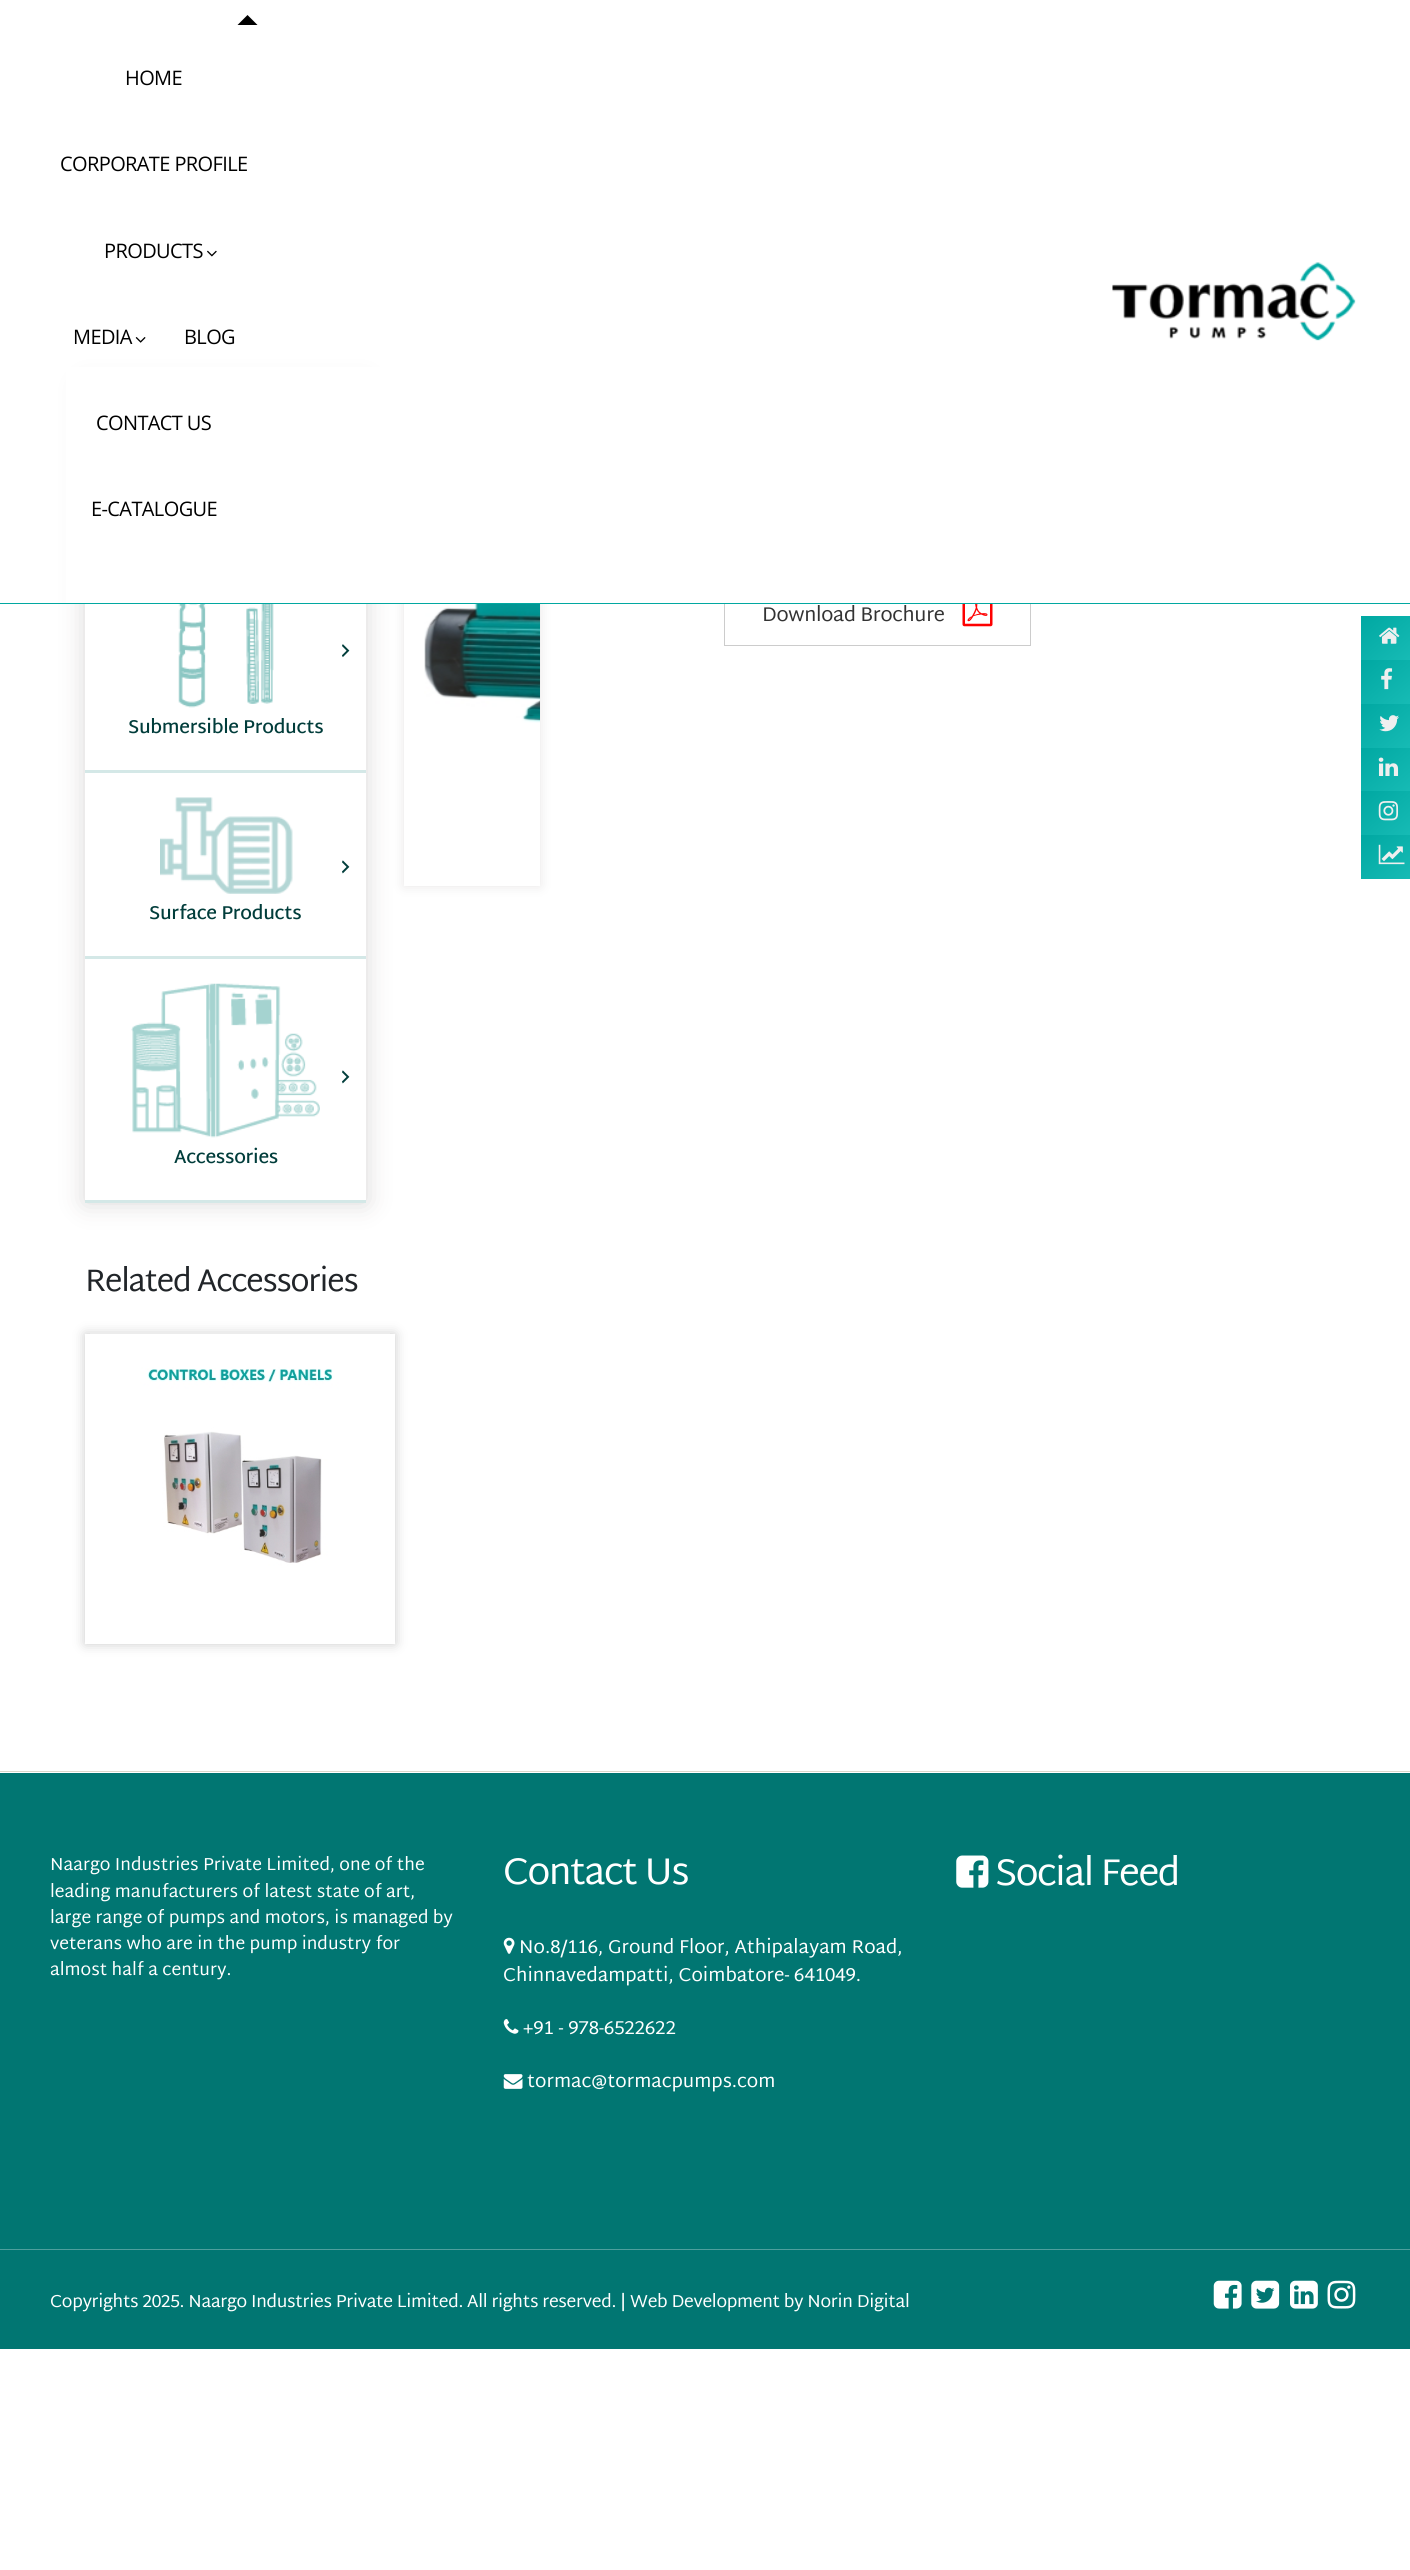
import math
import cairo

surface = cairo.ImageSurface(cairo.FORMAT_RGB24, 1410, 2570)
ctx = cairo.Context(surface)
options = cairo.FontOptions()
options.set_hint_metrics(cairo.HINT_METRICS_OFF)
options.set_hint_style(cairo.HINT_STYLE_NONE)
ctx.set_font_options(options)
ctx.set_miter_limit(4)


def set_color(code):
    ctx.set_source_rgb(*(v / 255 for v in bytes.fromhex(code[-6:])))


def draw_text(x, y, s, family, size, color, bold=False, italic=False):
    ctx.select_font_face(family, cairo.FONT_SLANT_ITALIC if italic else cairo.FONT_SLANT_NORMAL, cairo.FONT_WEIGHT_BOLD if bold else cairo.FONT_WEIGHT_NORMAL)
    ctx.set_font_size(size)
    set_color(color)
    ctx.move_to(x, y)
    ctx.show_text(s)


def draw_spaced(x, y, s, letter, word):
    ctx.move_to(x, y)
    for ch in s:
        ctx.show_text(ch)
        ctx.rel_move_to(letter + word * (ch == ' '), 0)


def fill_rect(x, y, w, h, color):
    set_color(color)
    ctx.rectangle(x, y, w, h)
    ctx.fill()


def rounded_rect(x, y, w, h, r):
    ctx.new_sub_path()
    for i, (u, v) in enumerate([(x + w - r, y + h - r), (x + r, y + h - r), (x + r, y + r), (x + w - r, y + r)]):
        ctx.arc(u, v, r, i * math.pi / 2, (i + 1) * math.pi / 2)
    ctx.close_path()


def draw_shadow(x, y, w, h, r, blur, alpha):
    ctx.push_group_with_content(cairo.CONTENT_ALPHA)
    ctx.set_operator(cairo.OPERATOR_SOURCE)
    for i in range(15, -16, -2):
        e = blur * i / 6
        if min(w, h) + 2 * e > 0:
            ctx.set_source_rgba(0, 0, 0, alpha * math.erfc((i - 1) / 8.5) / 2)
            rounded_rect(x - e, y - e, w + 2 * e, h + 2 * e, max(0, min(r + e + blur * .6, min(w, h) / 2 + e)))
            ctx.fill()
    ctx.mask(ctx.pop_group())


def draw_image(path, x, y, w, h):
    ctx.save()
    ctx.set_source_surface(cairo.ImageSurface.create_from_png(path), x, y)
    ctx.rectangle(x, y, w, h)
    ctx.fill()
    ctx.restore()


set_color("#ffffff")
ctx.paint()
ctx.save()
ctx.set_fill_rule(cairo.FILL_RULE_EVEN_ODD)
ctx.new_path()
ctx.move_to(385, 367)
ctx.line_to(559, 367)
ctx.line_to(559, 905)
ctx.line_to(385, 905)
ctx.close_path()
ctx.move_to(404, 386)
ctx.line_to(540, 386)
ctx.line_to(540, 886)
ctx.line_to(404, 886)
ctx.close_path()
ctx.clip()
set_color("#e8e6e6")
draw_shadow(404, 386, 136, 500, 0, 6, 1)
ctx.restore()
ctx.rectangle(724.5, 578.5, 306, 67)
set_color("#cccccc")
ctx.set_line_width(1)
ctx.stroke()
set_color("#dad8d8")
draw_shadow(85, 386, 281, 817, 0, 12.5, 1)
fill_rect(66, 367, 965, 236, "#ffffff")
fill_rect(0, 603, 1410, 1, "#01a8a1")
set_color("#000000")
ctx.new_path()
ctx.move_to(257.5, 25)
ctx.line_to(237.5, 25)
ctx.line_to(247.5, 15)
ctx.close_path()
ctx.fill()
ctx.select_font_face("Open Sans")
ctx.set_font_size(20)
draw_spaced(125, 85, "HOME", -0.6, 0)
draw_spaced(60, 171, "CORPORATE PROFILE", -0.6, 0)
draw_spaced(104, 258, "PRODUCTS", -0.6, 0)
draw_image("assets/img1.png", 207, 250, 10, 7)
draw_spaced(73, 344, "MEDIA", -0.6, 0)
draw_image("assets/img2.png", 135, 337, 11, 6)
draw_spaced(184, 344, "BLOG", -0.6, 0)
draw_spaced(96, 430, "CONTACT US", -0.6, 0)
draw_spaced(91, 516, "E-CATALOGUE", -0.6, 0)
draw_image("assets/img3.png", 1112, 262, 244, 79)
draw_image("assets/img4.png", 424, 604, 116, 119)
ctx.select_font_face("Martel Sans")
set_color("#333333")
draw_spaced(762, 621, "Download Brochure", -0.3, 0)
draw_image("assets/img5.png", 962, 604, 31, 23)
fill_rect(85, 604, 281, 596, "#ffffff")
fill_rect(85, 770, 281, 3, "#d4e8e7")
draw_image("assets/img6.png", 178, 604, 96, 104)
draw_image("assets/img7.png", 342, 644, 8, 14)
ctx.select_font_face("Martel Sans SemiBold")
ctx.set_font_size(18.75)
set_color("#013d3b")
draw_spaced(128, 733, "Submersible Products", -0.3, 0)
fill_rect(85, 956, 281, 3, "#d4e8e7")
draw_image("assets/img8.png", 160, 797, 133, 97)
draw_image("assets/img9.png", 342, 860, 8, 14)
set_color("#013d3b")
draw_spaced(149, 919, "Surface Products", -0.3, 0)
fill_rect(85, 1200, 281, 3, "#d4e8e7")
draw_image("assets/img10.png", 131, 983, 189, 155)
draw_image("assets/img9.png", 342, 1070, 8, 14)
set_color("#013d3b")
draw_spaced(174, 1163, "Accessories", -0.3, 0)
ctx.select_font_face("Martel Sans")
ctx.set_font_size(31.25)
set_color("#212529")
draw_spaced(85, 1291, "Related Accessories", -1.25, 0)
ctx.save()
ctx.set_fill_rule(cairo.FILL_RULE_EVEN_ODD)
ctx.new_path()
ctx.move_to(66, 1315)
ctx.line_to(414, 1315)
ctx.line_to(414, 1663)
ctx.line_to(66, 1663)
ctx.close_path()
ctx.move_to(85, 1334)
ctx.line_to(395, 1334)
ctx.line_to(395, 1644)
ctx.line_to(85, 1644)
ctx.close_path()
ctx.clip()
set_color("#cccccc")
draw_shadow(85, 1334, 310, 310, 0, 6, 1)
ctx.restore()
draw_image("assets/img11.png", 90, 1333, 300, 311)
fill_rect(0, 1773, 1410, 476, "#017672")
fill_rect(0, 1771, 1410, 1, "#dcd7ca")
draw_text(50, 1870, "Naargo Industries Private Limited, one of the", "Martel Sans", 17.5, "#ffffff")
draw_text(50, 1897, "leading manufacturers of latest state of art,", "Martel Sans", 17.5, "#ffffff")
draw_text(50, 1923, "large range of pumps and motors, is managed by", "Martel Sans", 17.5, "#ffffff")
draw_text(50, 1949, "veterans who are in the pump industry for", "Martel Sans", 17.5, "#ffffff")
draw_text(50, 1975, "almost half a century.", "Martel Sans", 17.5, "#ffffff")
ctx.set_font_size(37.5)
draw_spaced(503, 1884, "Contact Us", -1.5, 0)
draw_image("assets/img12.png", 503, 1937, 12, 17)
draw_text(519, 1953, "No.8/116, Ground Floor, Athipalayam Road,", "Martel Sans", 18.75, "#ffffff")
draw_text(503, 1981, "Chinnavedampatti, Coimbatore- 641049.", "Martel Sans", 18.75, "#ffffff")
draw_image("assets/img13.png", 503, 2019, 16, 15)
draw_text(523, 2034, "+91 - 978-6522622", "Martel Sans", 18.75, "#ffffff")
draw_image("assets/img14.png", 503, 2074, 20, 15)
draw_text(527, 2087, "tormac@tormacpumps.com", "Martel Sans", 18.75, "#ffffff")
draw_image("assets/img15.png", 956, 1855, 33, 33)
ctx.set_font_size(37.5)
draw_spaced(995, 1885, "Social Feed", -1.5, 0)
fill_rect(0, 2250, 1410, 99, "#017672")
fill_rect(0, 2249, 1410, 1, "#4e9f9d")
gradient = cairo.LinearGradient(1365, 613, 1407, 663)
gradient.add_color_stop_rgba(0, 0, 0.659, 0.635, 1)
gradient.add_color_stop_rgba(1, 0.09, 0.733, 0.71, 1)
ctx.set_source(gradient)
ctx.rectangle(1361, 616, 49, 44)
ctx.fill()
draw_image("assets/img16.png", 1379, 627, 21, 17)
gradient = cairo.LinearGradient(1365, 657, 1407, 707)
gradient.add_color_stop_rgba(0, 0, 0.659, 0.635, 1)
gradient.add_color_stop_rgba(1, 0.09, 0.733, 0.71, 1)
ctx.set_source(gradient)
ctx.rectangle(1361, 660, 49, 44)
ctx.fill()
draw_image("assets/img17.png", 1381, 668, 12, 22)
gradient = cairo.LinearGradient(1365, 700, 1407, 751)
gradient.add_color_stop_rgba(0, 0, 0.659, 0.635, 1)
gradient.add_color_stop_rgba(1, 0.09, 0.733, 0.71, 1)
ctx.set_source(gradient)
ctx.rectangle(1361, 704, 49, 44)
ctx.fill()
draw_image("assets/img18.png", 1379, 715, 20, 17)
gradient = cairo.LinearGradient(1365, 744, 1407, 795)
gradient.add_color_stop_rgba(0, 0, 0.659, 0.635, 1)
gradient.add_color_stop_rgba(1, 0.09, 0.733, 0.71, 1)
ctx.set_source(gradient)
ctx.rectangle(1361, 748, 49, 43)
ctx.fill()
draw_image("assets/img19.png", 1378, 757, 21, 19)
gradient = cairo.LinearGradient(1365, 788, 1407, 838)
gradient.add_color_stop_rgba(0, 0, 0.659, 0.635, 1)
gradient.add_color_stop_rgba(1, 0.09, 0.733, 0.71, 1)
ctx.set_source(gradient)
ctx.rectangle(1361, 791, 49, 44)
ctx.fill()
draw_image("assets/img20.png", 1378, 801, 21, 20)
gradient = cairo.LinearGradient(1365, 832, 1407, 882)
gradient.add_color_stop_rgba(0, 0, 0.659, 0.635, 1)
gradient.add_color_stop_rgba(1, 0.09, 0.733, 0.71, 1)
ctx.set_source(gradient)
ctx.rectangle(1361, 835, 49, 44)
ctx.fill()
draw_image("assets/img21.png", 1378, 844, 27, 21)
ctx.set_font_size(17.5)
set_color("#ffffff")
draw_spaced(50, 2307, "Copyrights 2025. Naargo Industries Private Limited. All rights reserved. | Web Development by Norin Digital", -0.3, 0)
draw_image("assets/img22.png", 1213, 2280, 29, 29)
draw_image("assets/img23.png", 1251, 2280, 29, 29)
draw_image("assets/img24.png", 1290, 2280, 28, 29)
draw_image("assets/img25.png", 1327, 2280, 29, 29)
surface.write_to_png("output.png")
